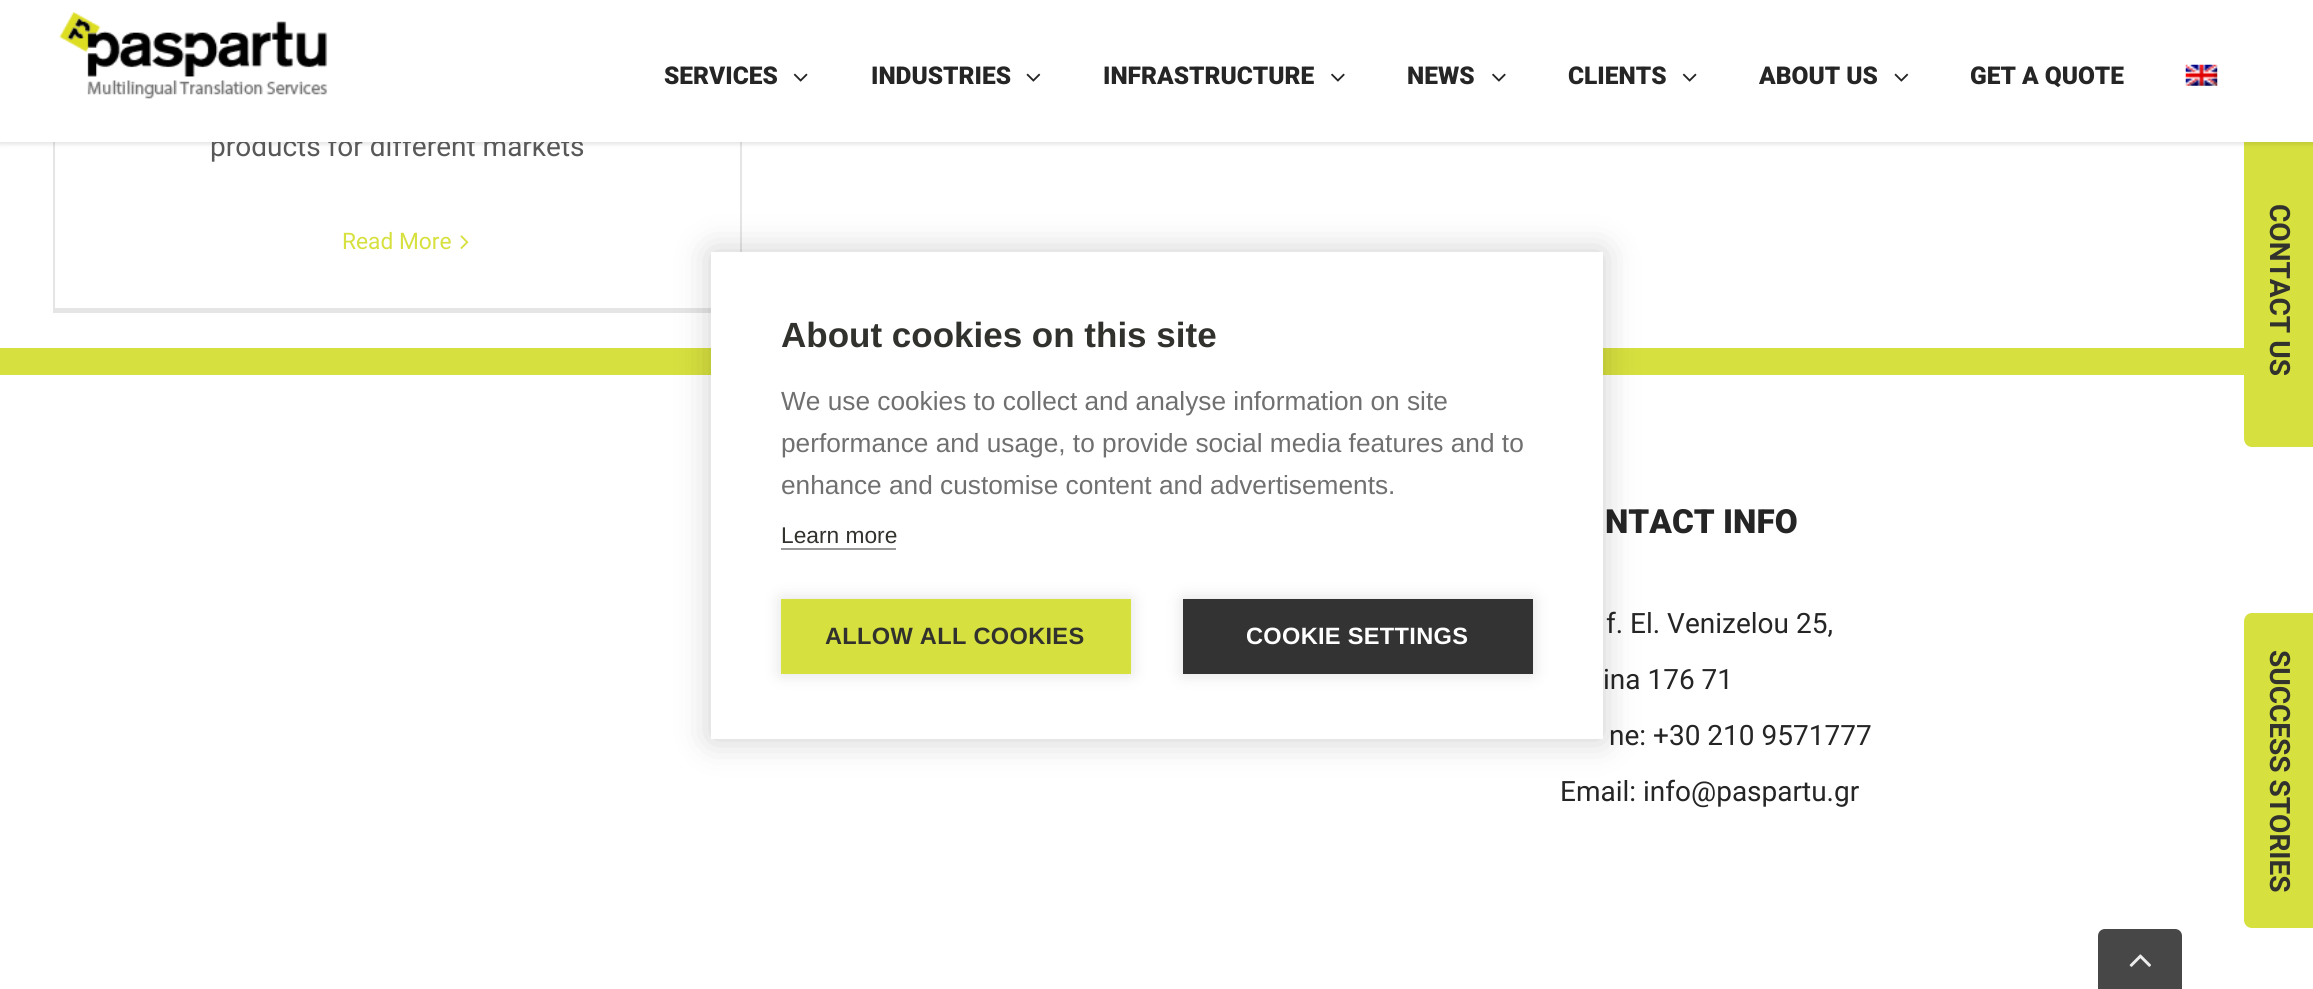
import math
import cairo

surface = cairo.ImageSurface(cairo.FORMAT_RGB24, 2313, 989)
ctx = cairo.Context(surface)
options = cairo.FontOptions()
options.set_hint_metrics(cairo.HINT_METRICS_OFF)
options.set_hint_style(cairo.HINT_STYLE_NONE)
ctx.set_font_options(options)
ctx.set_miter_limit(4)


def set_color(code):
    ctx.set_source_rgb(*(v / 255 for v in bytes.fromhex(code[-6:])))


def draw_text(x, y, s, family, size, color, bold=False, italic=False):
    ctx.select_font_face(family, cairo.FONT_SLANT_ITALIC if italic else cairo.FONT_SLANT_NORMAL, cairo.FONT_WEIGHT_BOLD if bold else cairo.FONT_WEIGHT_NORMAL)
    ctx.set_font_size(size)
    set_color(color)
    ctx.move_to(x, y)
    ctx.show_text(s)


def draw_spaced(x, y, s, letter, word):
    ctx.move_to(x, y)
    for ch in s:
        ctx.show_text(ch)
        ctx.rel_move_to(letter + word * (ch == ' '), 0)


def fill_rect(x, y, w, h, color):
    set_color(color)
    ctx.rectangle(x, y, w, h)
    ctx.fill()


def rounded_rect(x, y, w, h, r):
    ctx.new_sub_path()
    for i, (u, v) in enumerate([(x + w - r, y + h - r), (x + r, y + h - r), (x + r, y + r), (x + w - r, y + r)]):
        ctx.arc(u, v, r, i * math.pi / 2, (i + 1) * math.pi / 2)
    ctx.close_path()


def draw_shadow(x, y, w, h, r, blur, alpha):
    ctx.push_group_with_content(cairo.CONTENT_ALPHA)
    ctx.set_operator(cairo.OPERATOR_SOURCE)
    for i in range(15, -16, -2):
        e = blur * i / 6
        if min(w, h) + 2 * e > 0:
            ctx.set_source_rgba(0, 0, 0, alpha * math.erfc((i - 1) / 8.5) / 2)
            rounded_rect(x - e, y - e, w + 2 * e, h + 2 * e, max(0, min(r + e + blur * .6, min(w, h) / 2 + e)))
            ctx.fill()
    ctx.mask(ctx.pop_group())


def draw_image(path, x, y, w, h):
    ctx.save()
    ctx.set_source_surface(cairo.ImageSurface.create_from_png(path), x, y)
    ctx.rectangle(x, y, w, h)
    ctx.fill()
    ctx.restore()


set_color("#ffffff")
ctx.paint()
fill_rect(740, 142, 2, 110, "#e5e5e5")
fill_rect(53, 308, 658, 5, "#e5e5e5")
fill_rect(53, 142, 2, 171, "#e5e5e5")
set_color("#d6e03e")
ctx.new_path()
ctx.move_to(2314, 132)
ctx.line_to(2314, 447)
ctx.line_to(2252, 447)
ctx.curve_to(2247, 447, 2244, 443, 2244, 438)
ctx.line_to(2244, 141)
ctx.curve_to(2244, 136, 2247, 132, 2252, 132)
ctx.close_path()
ctx.fill()
set_color("#000000")
draw_shadow(0, 2, 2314, 142, 0, 2.5, 0.12)
draw_text(210, 156, "products for different markets", "Roboto", 28, "#585858")
fill_rect(0, 0, 2313, 142, "#ffffff")
draw_image("assets/img1.png", 59, 12, 269, 87)
draw_text(664, 84, "SERVICES", "Roboto Black", 24.5, "#252525")
draw_image("assets/img2.png", 793, 73, 15, 9)
draw_text(871, 84, "INDUSTRIES", "Roboto Black", 24.5, "#252525")
draw_image("assets/img3.png", 1026, 73, 15, 9)
draw_text(1103, 84, "INFRASTRUCTURE", "Roboto Black", 24.5, "#252525")
draw_image("assets/img4.png", 1331, 73, 14, 9)
draw_text(1407, 84, "NEWS", "Roboto Black", 24.5, "#252525")
draw_image("assets/img4.png", 1492, 73, 14, 9)
draw_text(1568, 84, "CLIENTS", "Roboto Black", 24.5, "#252525")
draw_image("assets/img2.png", 1682, 73, 15, 9)
draw_text(1759, 84, "ABOUT US", "Roboto Black", 24.5, "#252525")
draw_image("assets/img3.png", 1894, 73, 15, 9)
draw_text(1970, 84, "GET A QUOTE", "Roboto Black", 24.5, "#252525")
draw_image("assets/img5.png", 2185, 64, 33, 22)
draw_text(342, 249, "Read More", "Roboto", 22.75, "#d6e03e")
draw_image("assets/img6.png", 460, 235, 9, 14)
fill_rect(0, 348, 2244, 27, "#d6e03e")
draw_text(1605, 533, "NTACT INFO", "Roboto Black", 33.25, "#252525")
draw_text(1606, 633, "f. El. Venizelou 25,", "Roboto", 28, "#252525")
draw_text(1603, 689, "ina 176 71", "Roboto", 28, "#252525")
draw_text(1609, 745, "ne: +30 210 9571777", "Roboto", 28, "#252525")
draw_text(1560, 801, "Email: info@paspartu.gr", "Roboto", 28, "#252525")
ctx.save()
ctx.translate(2270, 204)
ctx.rotate(90 * math.pi / 180)
draw_text(0, 0, "CONTACT US", "Roboto", 28, "#31312e", bold=True)
ctx.restore()
set_color("#d6e03e")
ctx.new_path()
ctx.move_to(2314, 613)
ctx.line_to(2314, 928)
ctx.line_to(2252, 928)
ctx.curve_to(2247, 928, 2244, 924, 2244, 920)
ctx.line_to(2244, 622)
ctx.curve_to(2244, 617, 2247, 613, 2252, 613)
ctx.close_path()
ctx.fill()
ctx.save()
ctx.translate(2270, 650)
ctx.rotate(90 * math.pi / 180)
draw_text(0, 0, "SUCCESS STORIES", "Roboto", 28, "#31312e", bold=True)
ctx.restore()
set_color("#000000")
draw_shadow(711, 252, 892, 487, 0, 17.5, 0.2)
fill_rect(711, 252, 892, 487, "#ffffff")
draw_text(781, 347, "About cookies on this site", "Liberation Sans", 35, "#31312e", bold=True)
draw_text(781, 410, "We use cookies to collect and analyse information on site", "Liberation Sans", 26.25, "#707070")
draw_text(781, 452, "performance and usage, to provide social media features and to", "Liberation Sans", 26.25, "#707070")
draw_text(781, 494, "enhance and customise content and advertisements.", "Liberation Sans", 26.25, "#707070")
draw_text(781, 543, "Learn more", "Liberation Sans", 22.75, "#31312e")
fill_rect(781, 548, 115, 2, "#999999")
set_color("#000000")
draw_shadow(781, 599, 350, 75, 0, 9, 0.12)
fill_rect(781, 599, 350, 75, "#d6e03e")
ctx.select_font_face("Liberation Sans", cairo.FONT_SLANT_NORMAL, cairo.FONT_WEIGHT_BOLD)
ctx.set_font_size(23.6)
set_color("#31312e")
draw_spaced(825, 644, "ALLOW ALL COOKIES", 0.3, 0)
set_color("#000000")
draw_shadow(1183, 599, 350, 75, 0, 9, 0.12)
fill_rect(1183, 599, 350, 75, "#333333")
set_color("#ffffff")
draw_spaced(1246, 644, "COOKIE SETTINGS", 0.3, 0)
set_color("#474747")
ctx.new_path()
ctx.move_to(2105, 929)
ctx.line_to(2175, 929)
ctx.curve_to(2179, 929, 2182, 932, 2182, 936)
ctx.line_to(2182, 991)
ctx.line_to(2098, 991)
ctx.line_to(2098, 936)
ctx.curve_to(2098, 932, 2101, 929, 2105, 929)
ctx.close_path()
ctx.fill()
draw_image("assets/img7.png", 2129, 954, 22, 13)
surface.write_to_png("output.png")
